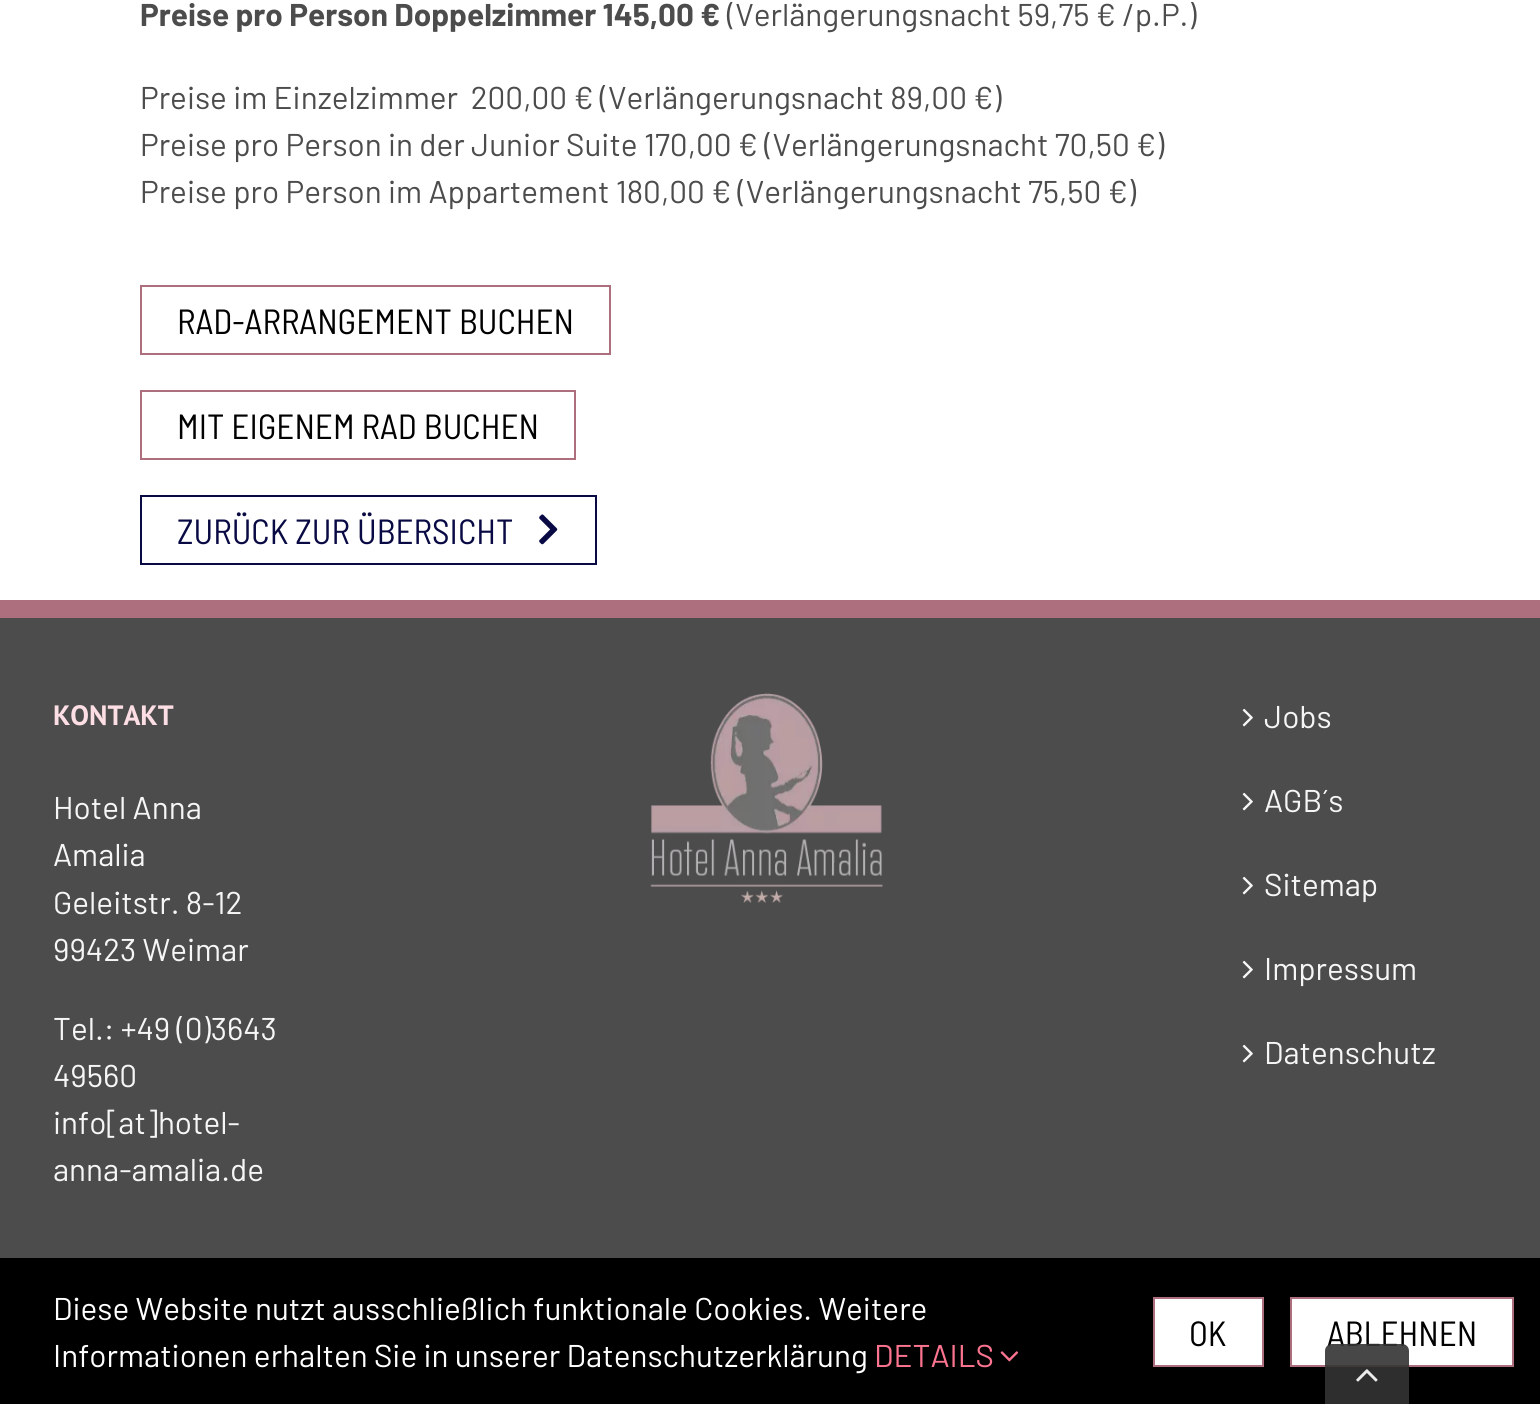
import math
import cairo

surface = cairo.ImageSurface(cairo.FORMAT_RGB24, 1540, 1404)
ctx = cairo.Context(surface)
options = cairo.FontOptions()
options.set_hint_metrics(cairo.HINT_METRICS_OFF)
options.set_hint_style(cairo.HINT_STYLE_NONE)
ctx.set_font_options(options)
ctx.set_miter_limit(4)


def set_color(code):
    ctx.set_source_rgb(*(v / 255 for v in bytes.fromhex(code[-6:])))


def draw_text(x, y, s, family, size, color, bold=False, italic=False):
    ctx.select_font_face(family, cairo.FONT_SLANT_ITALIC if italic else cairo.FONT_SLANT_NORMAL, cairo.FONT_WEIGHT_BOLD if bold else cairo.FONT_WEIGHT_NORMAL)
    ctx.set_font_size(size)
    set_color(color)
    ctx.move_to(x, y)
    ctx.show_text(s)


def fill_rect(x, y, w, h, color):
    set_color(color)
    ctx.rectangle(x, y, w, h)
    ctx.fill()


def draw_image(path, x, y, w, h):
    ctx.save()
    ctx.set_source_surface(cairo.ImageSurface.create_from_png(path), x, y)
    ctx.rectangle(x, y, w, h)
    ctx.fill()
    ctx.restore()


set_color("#ffffff")
ctx.paint()
draw_text(140, 26, "Preise pro Person Doppelzimmer 145,00 €", "Barlow", 31.5, "#4c4c4c", bold=True)
draw_text(727, 26, "(Verlängerungsnacht 59,75 € /p.P.)", "Barlow", 31.5, "#4c4c4c")
draw_text(140, 109, "Preise im Einzelzimmer  200,00 € (Verlängerungsnacht 89,00 €)", "Barlow", 31.5, "#4c4c4c")
draw_text(140, 156, "Preise pro Person in der Junior Suite 170,00 € (Verlängerungsnacht 70,50 €)", "Barlow", 31.5, "#4c4c4c")
draw_text(140, 203, "Preise pro Person im Appartement 180,00 € (Verlängerungsnacht 75,50 €)", "Barlow", 31.5, "#4c4c4c")
ctx.rectangle(141, 286, 469, 68)
set_color("#ad6e7e")
ctx.stroke()
draw_text(177, 334, "RAD-ARRANGEMENT BUCHEN", "Barlow Semi Condensed", 35, "#000000")
ctx.rectangle(141, 391, 434, 68)
set_color("#ad6e7e")
ctx.stroke()
draw_text(177, 439, "MIT EIGENEM RAD BUCHEN", "Barlow Semi Condensed", 35, "#000000")
ctx.rectangle(141, 496, 455, 68)
set_color("#090a44")
ctx.stroke()
draw_text(177, 544, "ZURÜCK ZUR ÜBERSICHT", "Barlow Semi Condensed", 35, "#090a44")
draw_image("assets/img1.png", 539, 514, 19, 31)
fill_rect(0, 618, 1540, 640, "#4c4c4c")
fill_rect(0, 600, 1540, 18, "#ad6e7e")
draw_text(53, 725, "KONTAKT", "PT Sans", 28, "#fcdee4", bold=True)
draw_text(53, 819, "Hotel Anna", "Barlow", 31.5, "#f6f6f6")
draw_text(53, 866, "Amalia", "Barlow", 31.5, "#f6f6f6")
draw_text(53, 914, "Geleitstr. 8-12", "Barlow", 31.5, "#f6f6f6")
draw_text(53, 961, "99423 Weimar", "Barlow", 31.5, "#f6f6f6")
draw_text(53, 1040, "Tel.: +49 (0)3643", "Barlow", 31.5, "#f6f6f6")
draw_text(53, 1087, "49560", "Barlow", 31.5, "#f6f6f6")
draw_text(53, 1134, "info[at]hotel-", "Barlow", 31.5, "#f6f6f6")
draw_text(53, 1181, "anna-amalia.de", "Barlow", 31.5, "#f6f6f6")
draw_image("assets/img2.png", 650, 693, 233, 210)
draw_image("assets/img3.png", 1242, 708, 11, 19)
draw_text(1264, 728, "Jobs", "Barlow", 31.5, "#f6f6f6")
draw_image("assets/img3.png", 1242, 792, 11, 19)
draw_text(1264, 812, "AGB´s", "Barlow", 31.5, "#f6f6f6")
draw_image("assets/img3.png", 1242, 876, 11, 19)
draw_text(1264, 896, "Sitemap", "Barlow", 31.5, "#f6f6f6")
draw_image("assets/img3.png", 1242, 960, 11, 19)
draw_text(1264, 980, "Impressum", "Barlow", 31.5, "#f6f6f6")
draw_image("assets/img3.png", 1242, 1044, 11, 19)
draw_text(1264, 1064, "Datenschutz", "Barlow", 31.5, "#f6f6f6")
fill_rect(0, 1258, 1540, 146, "#000000")
draw_text(53, 1320, "Diese Website nutzt ausschließlich funktionale Cookies. Weitere", "Barlow", 31.5, "#ffffff")
draw_text(53, 1367, "Informationen erhalten Sie in unserer Datenschutzerklärung", "Barlow", 31.5, "#ffffff")
draw_text(874, 1367, "DETAILS", "Barlow", 31.5, "#fc748f")
draw_image("assets/img4.png", 1000, 1351, 19, 11)
set_color("#ffffff")
ctx.rectangle(1154, 1298, 109, 68)
ctx.fill_preserve()
set_color("#ad6e7e")
ctx.stroke()
draw_text(1189, 1346, "OK", "Barlow Semi Condensed", 35, "#000000")
set_color("#ffffff")
ctx.rectangle(1291, 1298, 222, 68)
ctx.fill_preserve()
set_color("#ad6e7e")
ctx.stroke()
draw_text(1327, 1346, "ABLEHNEN", "Barlow Semi Condensed", 35, "#000000")
ctx.set_source_rgba(0.2, 0.2, 0.2, 0.9)
ctx.new_path()
ctx.move_to(1332, 1344)
ctx.line_to(1402, 1344)
ctx.curve_to(1406, 1344, 1409, 1347, 1409, 1351)
ctx.line_to(1409, 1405)
ctx.line_to(1325, 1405)
ctx.line_to(1325, 1351)
ctx.curve_to(1325, 1347, 1328, 1344, 1332, 1344)
ctx.close_path()
ctx.fill()
draw_image("assets/img5.png", 1356, 1369, 22, 13)
surface.write_to_png("output.png")
